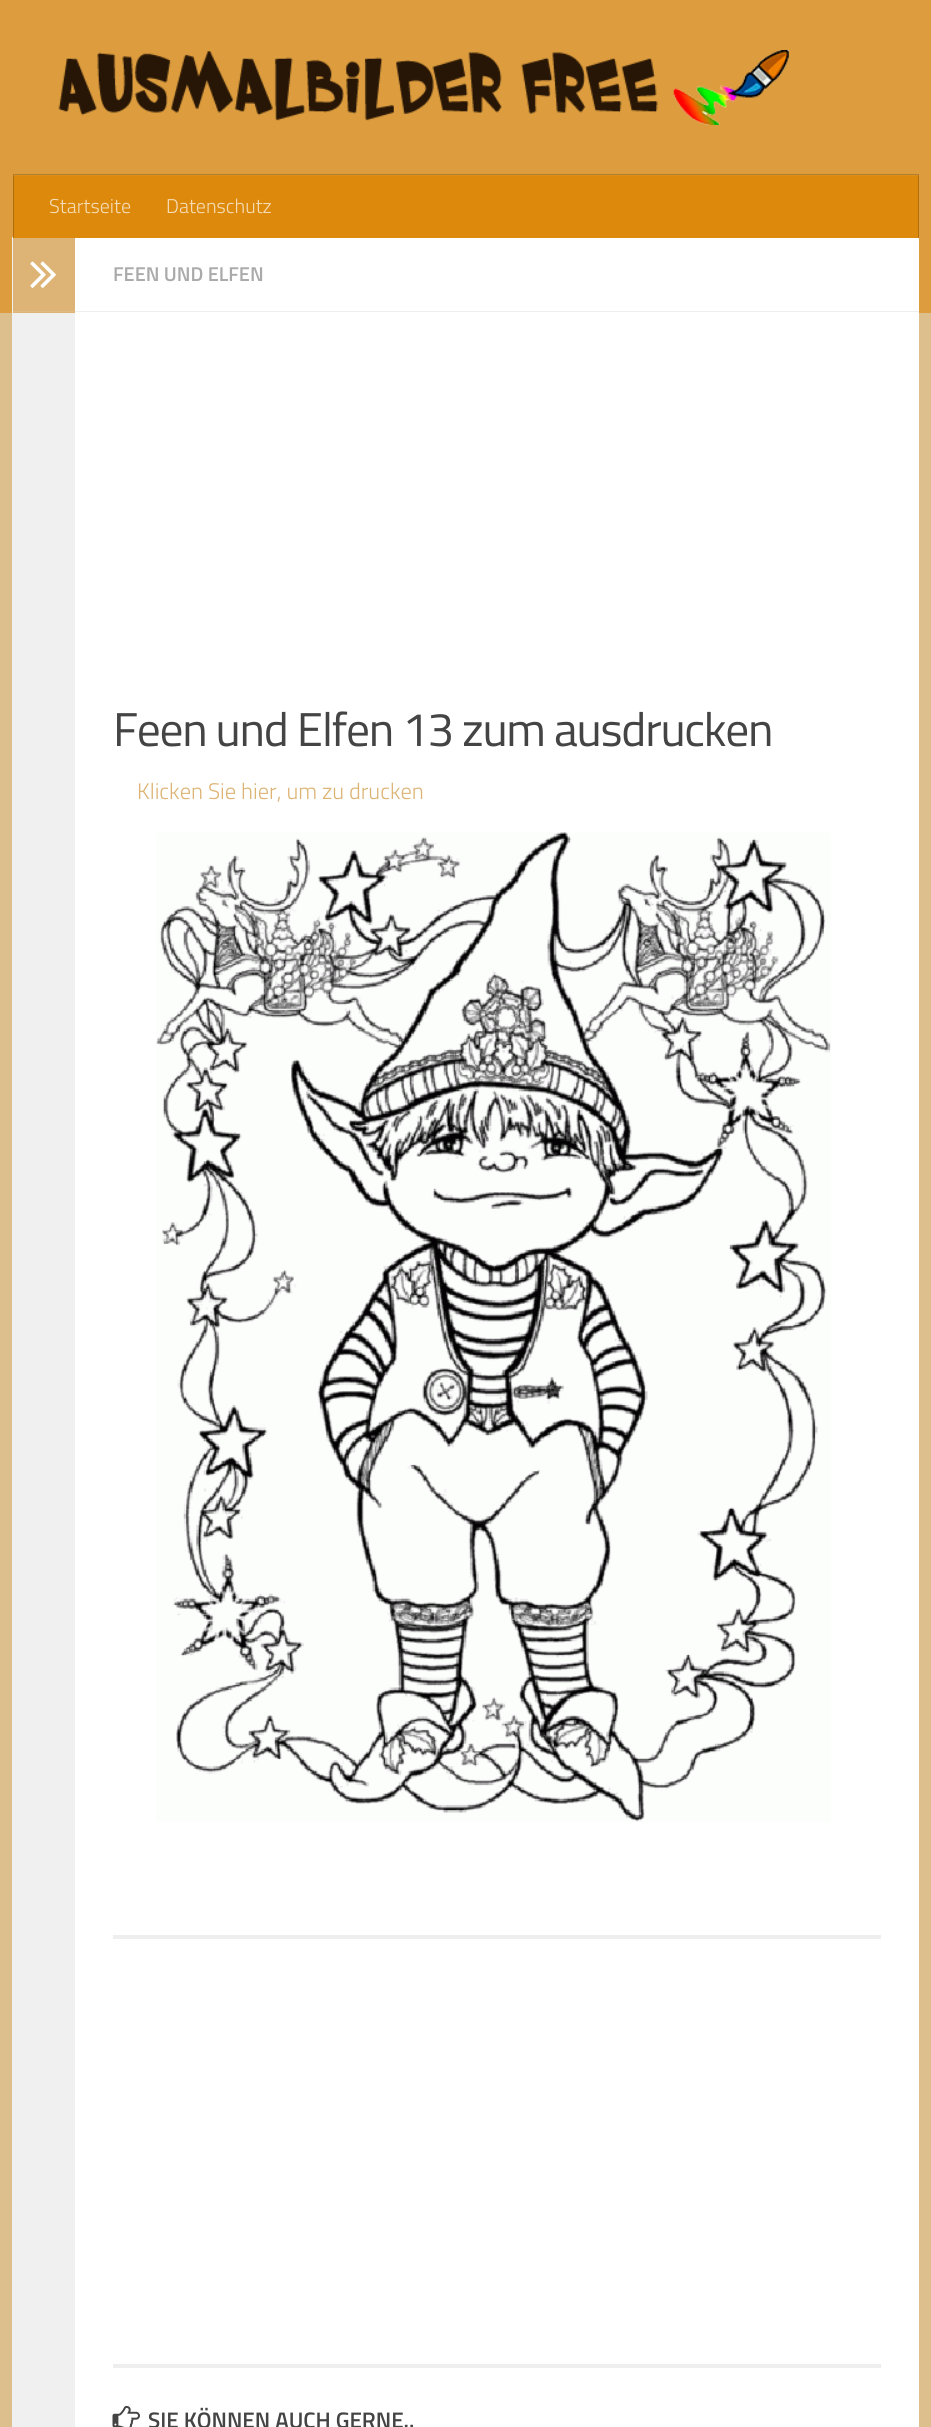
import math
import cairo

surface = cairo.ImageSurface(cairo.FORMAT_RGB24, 931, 2427)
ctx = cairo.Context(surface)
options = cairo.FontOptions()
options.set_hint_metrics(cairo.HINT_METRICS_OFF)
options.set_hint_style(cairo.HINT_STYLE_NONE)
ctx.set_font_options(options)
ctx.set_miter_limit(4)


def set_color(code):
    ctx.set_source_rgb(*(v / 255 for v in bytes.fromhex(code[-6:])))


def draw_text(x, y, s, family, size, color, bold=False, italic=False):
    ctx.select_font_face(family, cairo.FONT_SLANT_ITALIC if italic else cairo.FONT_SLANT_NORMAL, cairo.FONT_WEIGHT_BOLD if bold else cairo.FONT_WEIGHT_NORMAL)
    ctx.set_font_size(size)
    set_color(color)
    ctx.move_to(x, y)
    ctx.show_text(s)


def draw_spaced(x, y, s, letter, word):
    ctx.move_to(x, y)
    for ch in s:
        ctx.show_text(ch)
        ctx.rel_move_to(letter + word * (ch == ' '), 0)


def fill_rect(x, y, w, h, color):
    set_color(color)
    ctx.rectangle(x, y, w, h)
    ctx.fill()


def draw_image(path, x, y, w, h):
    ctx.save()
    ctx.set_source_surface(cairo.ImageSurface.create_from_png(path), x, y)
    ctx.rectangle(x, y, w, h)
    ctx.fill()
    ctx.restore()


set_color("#ddbf8d")
ctx.paint()
fill_rect(0, 0, 931, 313, "#dd9d3e")
draw_image("assets/img1.png", 58, 50, 731, 75)
set_color("#b17e32")
ctx.new_path()
ctx.move_to(13, 174)
ctx.line_to(13, 175)
ctx.line_to(919, 175)
ctx.line_to(919, 236)
ctx.line_to(919, 174)
ctx.close_path()
ctx.fill()
fill_rect(12, 237, 63, 2190, "#f0f0f0")
fill_rect(14, 176, 904, 62, "#dd890b")
fill_rect(13, 175, 906, 1, "#df8f17")
fill_rect(918, 175, 1, 63, "#b16e09")
fill_rect(918, 175, 1, 1, "#b57515")
fill_rect(13, 175, 1, 63, "#b16e09")
fill_rect(13, 175, 1, 1, "#b57515")
draw_text(49, 213, "Startseite", "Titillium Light", 20, "#f5dcb6")
draw_text(166, 213, "Datenschutz", "Titillium Light", 20, "#f5dcb6")
fill_rect(75, 238, 844, 2189, "#ffffff")
fill_rect(13, 238, 62, 75, "#ddb475")
fill_rect(13, 311, 62, 1, "#e0bc83")
draw_image("assets/img2.png", 30, 261, 26, 27)
fill_rect(75, 311, 844, 1, "#eeeeee")
draw_text(113, 281, "FEEN UND ELFEN", "Titillium SemiBold", 20, "#aaaaaa")
ctx.select_font_face("Titillium")
ctx.set_font_size(47.5)
set_color("#444444")
draw_spaced(113, 746, "Feen und Elfen 13 zum ausdrucken", -1.25, 0)
draw_text(137, 799, "Klicken Sie hier, um zu drucken", "Titillium Light", 22.5, "#ddb475")
draw_image("assets/img3.png", 156, 832, 675, 990)
fill_rect(113, 1935, 768, 4, "#eeeeee")
fill_rect(113, 2364, 768, 4, "#eeeeee")
draw_image("assets/img4.png", 112, 2405, 28, 22)
draw_text(148, 2428, "SIE KÖNNEN AUCH GERNE..", "Titillium SemiBold", 22.5, "#444444")
surface.write_to_png("output.png")
